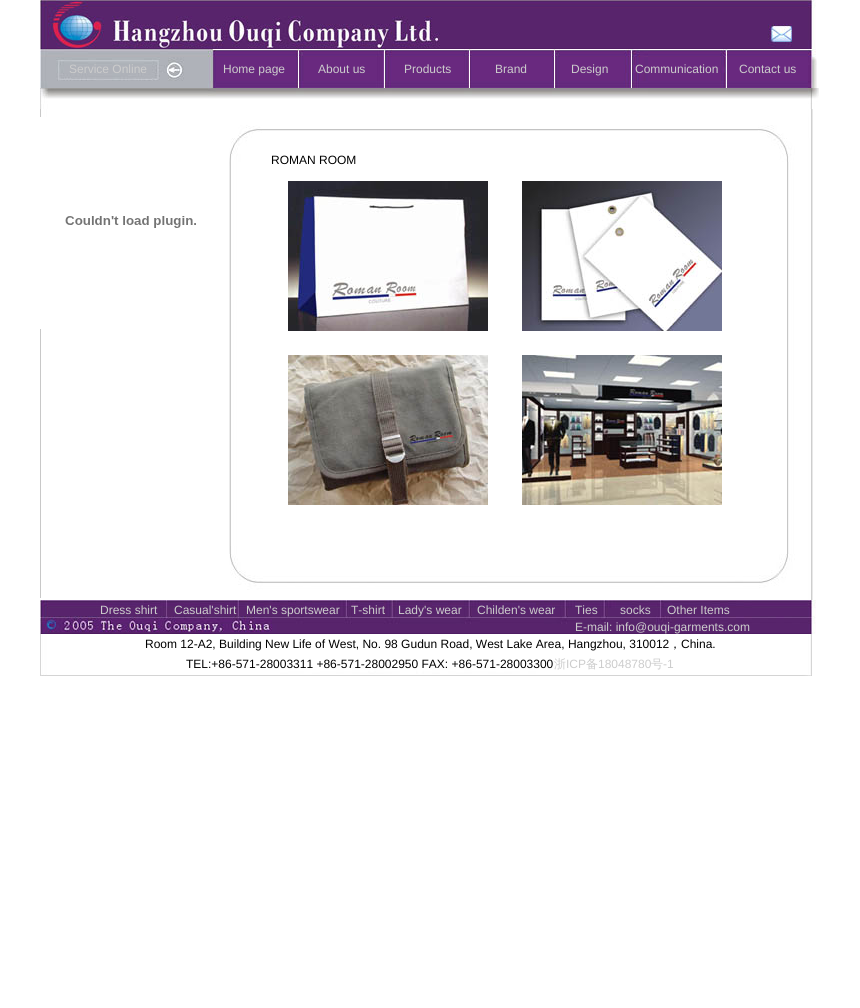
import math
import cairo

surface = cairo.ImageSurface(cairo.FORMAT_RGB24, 860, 1008)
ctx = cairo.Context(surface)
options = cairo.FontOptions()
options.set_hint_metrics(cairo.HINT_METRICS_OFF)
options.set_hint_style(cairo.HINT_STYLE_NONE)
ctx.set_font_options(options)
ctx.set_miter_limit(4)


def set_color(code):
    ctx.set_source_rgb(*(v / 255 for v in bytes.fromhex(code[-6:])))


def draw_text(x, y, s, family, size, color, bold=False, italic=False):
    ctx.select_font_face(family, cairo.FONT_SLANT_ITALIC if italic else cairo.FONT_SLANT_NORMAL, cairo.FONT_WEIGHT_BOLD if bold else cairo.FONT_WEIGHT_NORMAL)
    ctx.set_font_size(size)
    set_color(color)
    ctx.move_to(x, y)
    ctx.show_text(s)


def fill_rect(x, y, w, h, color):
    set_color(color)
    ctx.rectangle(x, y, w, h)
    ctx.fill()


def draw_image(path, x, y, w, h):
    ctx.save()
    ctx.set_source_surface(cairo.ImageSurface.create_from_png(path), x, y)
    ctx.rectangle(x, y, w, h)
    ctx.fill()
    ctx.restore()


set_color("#ffffff")
ctx.paint()
draw_image("assets/img1.png", 40, 0, 776, 49)
draw_image("assets/img2.png", 40, 49, 777, 39)
draw_text(69, 73, "Service Online", "Liberation Sans", 12, "#cccccc")
draw_text(223, 73, "Home page", "Liberation Sans", 12, "#cccccc")
draw_text(318, 73, "About us", "Liberation Sans", 12, "#cccccc")
draw_text(404, 73, "Products", "Liberation Sans", 12, "#cccccc")
draw_text(495, 73, "Brand", "Liberation Sans", 12, "#cccccc")
draw_text(571, 73, "Design", "Liberation Sans", 12, "#cccccc")
draw_text(635, 73, "Communication", "Liberation Sans", 12, "#cccccc")
draw_text(739, 73, "Contact us", "Liberation Sans", 12, "#cccccc")
draw_image("assets/img3.png", 40, 88, 779, 21)
draw_image("assets/img4.png", 40, 109, 773, 8)
draw_image("assets/img5.png", 238, 117, 575, 21)
draw_image("assets/img6.png", 229, 138, 18, 447)
draw_text(271, 164, "ROMAN ROOM", "Liberation Sans", 12, "#000000")
draw_image("assets/img7.png", 288, 181, 200, 150)
draw_image("assets/img8.png", 522, 181, 200, 150)
draw_image("assets/img9.png", 288, 355, 200, 150)
draw_image("assets/img10.png", 522, 355, 200, 150)
draw_image("assets/img11.png", 771, 138, 42, 462)
draw_image("assets/img12.png", 247, 575, 524, 15)
draw_image("assets/img13.png", 65, 216, 131, 12)
fill_rect(40, 329, 1, 269, "#c8c8c8")
draw_image("assets/img14.png", 40, 600, 776, 34)
draw_text(100, 614, "Dress shirt", "Liberation Sans", 12, "#cccccc")
draw_text(174, 614, "Casual'shirt", "Liberation Sans", 12, "#cccccc")
draw_text(246, 614, "Men's sportswear", "Liberation Sans", 12, "#cccccc")
draw_text(351, 614, "T-shirt", "Liberation Sans", 12, "#cccccc")
draw_text(398, 614, "Lady's wear", "Liberation Sans", 12, "#cccccc")
draw_text(477, 614, "Childen's wear", "Liberation Sans", 12, "#cccccc")
draw_text(575, 614, "Ties", "Liberation Sans", 12, "#cccccc")
draw_text(620, 614, "socks", "Liberation Sans", 12, "#cccccc")
draw_text(667, 614, "Other Items", "Liberation Sans", 12, "#cccccc")
draw_text(575, 631, "E-mail: info@ouqi-garments.com", "Liberation Sans", 12, "#cccccc")
draw_image("assets/img15.png", 40, 634, 772, 42)
draw_text(145, 648, "Room 12-A2, Building New Life of West, No. 98 Gudun Road, West Lake Area, Hangzhou, 310012", "Liberation Sans", 12, "#000000")
draw_text(669, 648, "，", "WenQuanYi Zen Hei Medium", 12, "#000000")
draw_text(681, 648, "China.", "Liberation Sans", 12, "#000000")
draw_text(186, 668, "TEL:+86-571-28003311 +86-571-28002950 FAX: +86-571-28003300", "Liberation Sans", 12, "#000000")
draw_text(554, 668, "浙", "WenQuanYi Zen Hei Medium", 12, "#cccccc")
draw_text(566, 668, "ICP", "Liberation Sans", 12, "#cccccc")
draw_text(586, 668, "备", "WenQuanYi Zen Hei Medium", 12, "#cccccc")
draw_text(598, 668, "18048780", "Liberation Sans", 12, "#cccccc")
draw_text(651, 668, "号", "WenQuanYi Zen Hei Medium", 12, "#cccccc")
draw_text(663, 668, "-1", "Liberation Sans", 12, "#cccccc")
surface.write_to_png("output.png")
